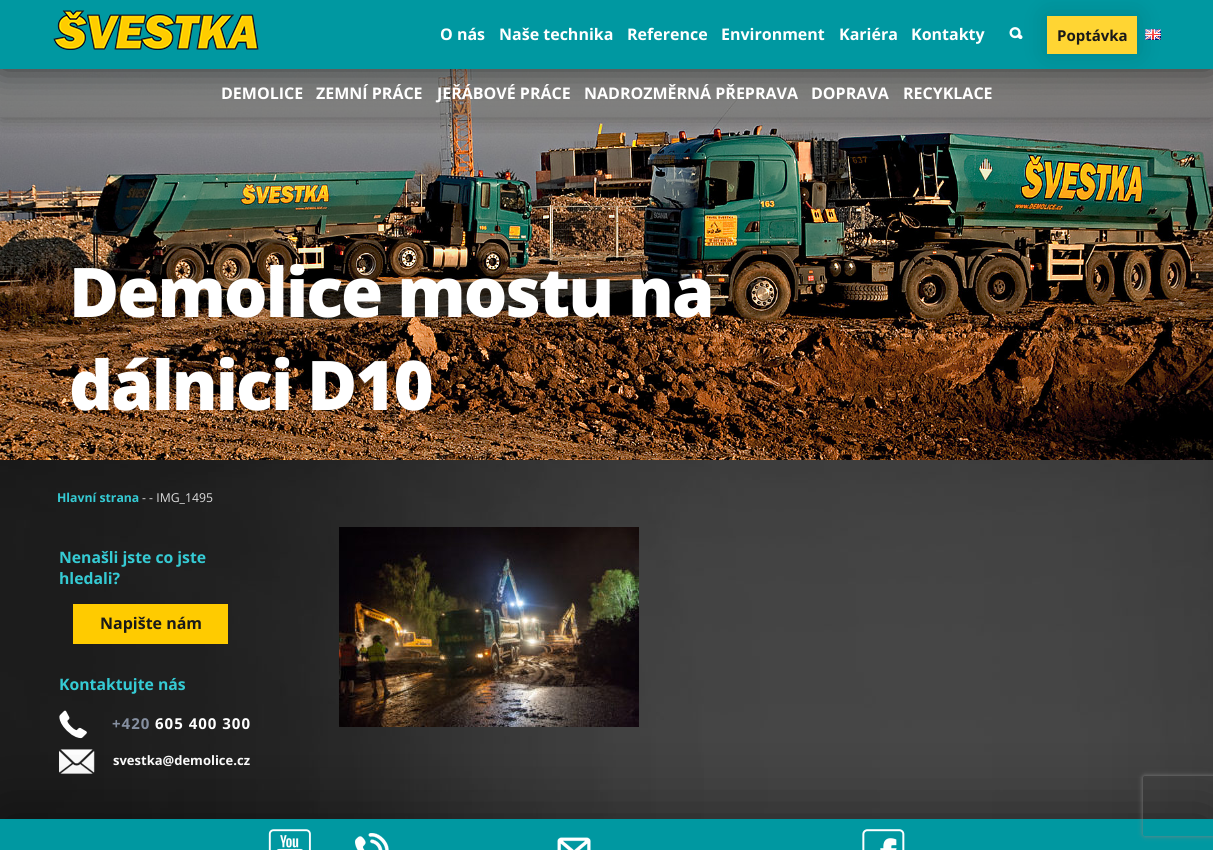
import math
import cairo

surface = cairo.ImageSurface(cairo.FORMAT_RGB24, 1213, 850)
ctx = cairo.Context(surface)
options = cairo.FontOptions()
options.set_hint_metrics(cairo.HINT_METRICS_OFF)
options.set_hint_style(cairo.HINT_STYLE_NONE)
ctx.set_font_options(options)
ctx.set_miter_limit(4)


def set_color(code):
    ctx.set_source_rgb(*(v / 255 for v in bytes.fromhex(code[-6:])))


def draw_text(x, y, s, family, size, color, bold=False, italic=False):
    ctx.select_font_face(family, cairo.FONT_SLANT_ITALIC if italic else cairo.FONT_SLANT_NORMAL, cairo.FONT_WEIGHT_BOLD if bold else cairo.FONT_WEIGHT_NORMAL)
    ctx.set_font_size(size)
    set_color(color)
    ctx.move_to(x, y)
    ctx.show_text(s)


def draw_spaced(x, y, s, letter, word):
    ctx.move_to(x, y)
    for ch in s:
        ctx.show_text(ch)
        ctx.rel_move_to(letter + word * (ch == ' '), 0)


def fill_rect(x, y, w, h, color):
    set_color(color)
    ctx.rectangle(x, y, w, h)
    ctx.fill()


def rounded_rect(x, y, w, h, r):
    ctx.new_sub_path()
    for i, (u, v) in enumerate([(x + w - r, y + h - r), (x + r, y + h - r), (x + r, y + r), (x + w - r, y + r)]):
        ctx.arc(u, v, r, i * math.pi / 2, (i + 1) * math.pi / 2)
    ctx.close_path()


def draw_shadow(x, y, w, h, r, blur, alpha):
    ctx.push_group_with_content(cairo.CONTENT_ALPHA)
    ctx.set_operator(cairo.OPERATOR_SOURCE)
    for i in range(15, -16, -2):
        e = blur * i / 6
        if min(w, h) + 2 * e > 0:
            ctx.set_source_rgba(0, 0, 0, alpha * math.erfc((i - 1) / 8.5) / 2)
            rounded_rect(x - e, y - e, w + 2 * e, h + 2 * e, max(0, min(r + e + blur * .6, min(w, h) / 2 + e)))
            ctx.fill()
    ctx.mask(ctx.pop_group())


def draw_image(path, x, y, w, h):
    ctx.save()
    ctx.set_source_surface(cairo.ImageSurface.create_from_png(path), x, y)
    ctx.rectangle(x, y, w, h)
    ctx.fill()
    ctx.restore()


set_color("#ffffff")
ctx.paint()
draw_image("assets/img1.png", 0, 460, 1213, 359)
draw_image("assets/img5.png", 0, 69, 1213, 391)
ctx.save()
ctx.rectangle(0, 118, 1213, 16)
ctx.clip()
set_color("#000000")
draw_shadow(0, 69, 1213, 49, 0, 10, 0.4)
ctx.restore()
ctx.set_source_rgba(0.412, 0.412, 0.412, 0.5)
ctx.rectangle(0, 69, 1213, 49)
ctx.fill()
ctx.set_source_rgba(0, 0, 0, 0.05)
ctx.rectangle(0, 117, 1213, 1)
ctx.fill()
set_color("#000000")
draw_shadow(0, 0, 1213, 69, 0, 17.5, 0.6)
fill_rect(0, 0, 1213, 69, "#0098a1")
draw_image("assets/img2.png", 53, 10, 206, 40)
draw_text(440, 40, "O nás", "Open Sans", 16, "#ffffff", bold=True)
draw_text(499, 40, "Naše technika", "Open Sans", 16, "#ffffff", bold=True)
draw_text(627, 40, "Reference", "Open Sans", 16, "#ffffff", bold=True)
draw_text(721, 40, "Environment", "Open Sans", 16, "#ffffff", bold=True)
draw_text(839, 40, "Kariéra", "Open Sans", 16, "#ffffff", bold=True)
draw_text(911, 40, "Kontakty", "Open Sans", 16, "#ffffff", bold=True)
draw_image("assets/img4.png", 1145, 29, 16, 11)
set_color("#000000")
draw_shadow(1047, 16, 90, 38, 0, 12.5, 0.15)
draw_image("assets/img3.png", 1009, 27, 14, 13)
fill_rect(1047, 16, 90, 38, "#ffd533")
draw_text(1057, 41, "Poptávka", "Open Sans", 15, "#191919", bold=True)
draw_text(221, 99, "DEMOLICE", "Open Sans", 16, "#ffffff", bold=True)
draw_text(316, 99, "ZEMNÍ PRÁCE", "Open Sans", 16, "#ffffff", bold=True)
draw_text(437, 99, "JEŘÁBOVÉ PRÁCE", "Open Sans", 16, "#ffffff", bold=True)
draw_text(584, 99, "NADROZMĚRNÁ PŘEPRAVA", "Open Sans", 16, "#ffffff", bold=True)
draw_text(811, 99, "DOPRAVA", "Open Sans", 16, "#ffffff", bold=True)
draw_text(903, 99, "RECYKLACE", "Open Sans", 16, "#ffffff", bold=True)
ctx.select_font_face("Open Sans ExtraBold")
ctx.set_font_size(68.5)
draw_spaced(69, 317, "Demolice mostu na", -2, 0)
draw_spaced(69, 410, "dálnici D10", -2, 0)
draw_text(57, 502, "Hlavní strana", "Open Sans", 12.25, "#35cbd4", bold=True)
draw_text(142, 502, "- - IMG_1495", "Open Sans", 12.25, "#dedede")
draw_text(59, 563, "Nenašli jste co jste", "Open Sans", 15.75, "#35cbd4", bold=True)
draw_text(59, 584, "hledali?", "Open Sans", 15.75, "#35cbd4", bold=True)
fill_rect(73, 604, 155, 40, "#ffcb00")
draw_text(100, 629, "Napište nám", "Open Sans", 16, "#191919", bold=True)
draw_text(59, 690, "Kontaktujte nás", "Open Sans", 15.75, "#35cbd4", bold=True)
draw_image("assets/img6.png", 59, 710, 28, 29)
ctx.set_font_size(15)
set_color("#858fa0")
draw_spaced(112, 729, "+420", 1, 0)
set_color("#ffffff")
draw_spaced(155, 729, "605 400 300", 1, 0)
draw_image("assets/img7.png", 59, 749, 36, 25)
draw_text(113, 765, "svestka@demolice.cz", "Open Sans", 13, "#ffffff", bold=True)
draw_image("assets/img8.png", 339, 527, 300, 200)
set_color("#000000")
draw_shadow(0, 819, 1213, 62, 0, 35, 0.5)
fill_rect(0, 819, 1213, 31, "#0098a1")
draw_image("assets/img9.png", 268, 829, 43, 21)
draw_image("assets/img10.png", 355, 833, 34, 17)
draw_image("assets/img11.png", 557, 837, 34, 13)
draw_image("assets/img12.png", 862, 829, 43, 21)
ctx.save()
ctx.set_fill_rule(cairo.FILL_RULE_EVEN_ODD)
ctx.new_path()
ctx.move_to(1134, 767)
ctx.line_to(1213, 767)
ctx.line_to(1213, 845)
ctx.line_to(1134, 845)
ctx.close_path()
ctx.move_to(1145, 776)
ctx.line_to(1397, 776)
ctx.curve_to(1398, 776, 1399, 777, 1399, 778)
ctx.line_to(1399, 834)
ctx.curve_to(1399, 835, 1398, 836, 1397, 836)
ctx.line_to(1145, 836)
ctx.curve_to(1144, 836, 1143, 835, 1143, 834)
ctx.line_to(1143, 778)
ctx.curve_to(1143, 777, 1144, 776, 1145, 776)
ctx.close_path()
ctx.clip()
set_color("#808080")
draw_shadow(1143, 776, 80, 60, 2, 2.5, 1)
ctx.restore()
surface.write_to_png("output.png")
